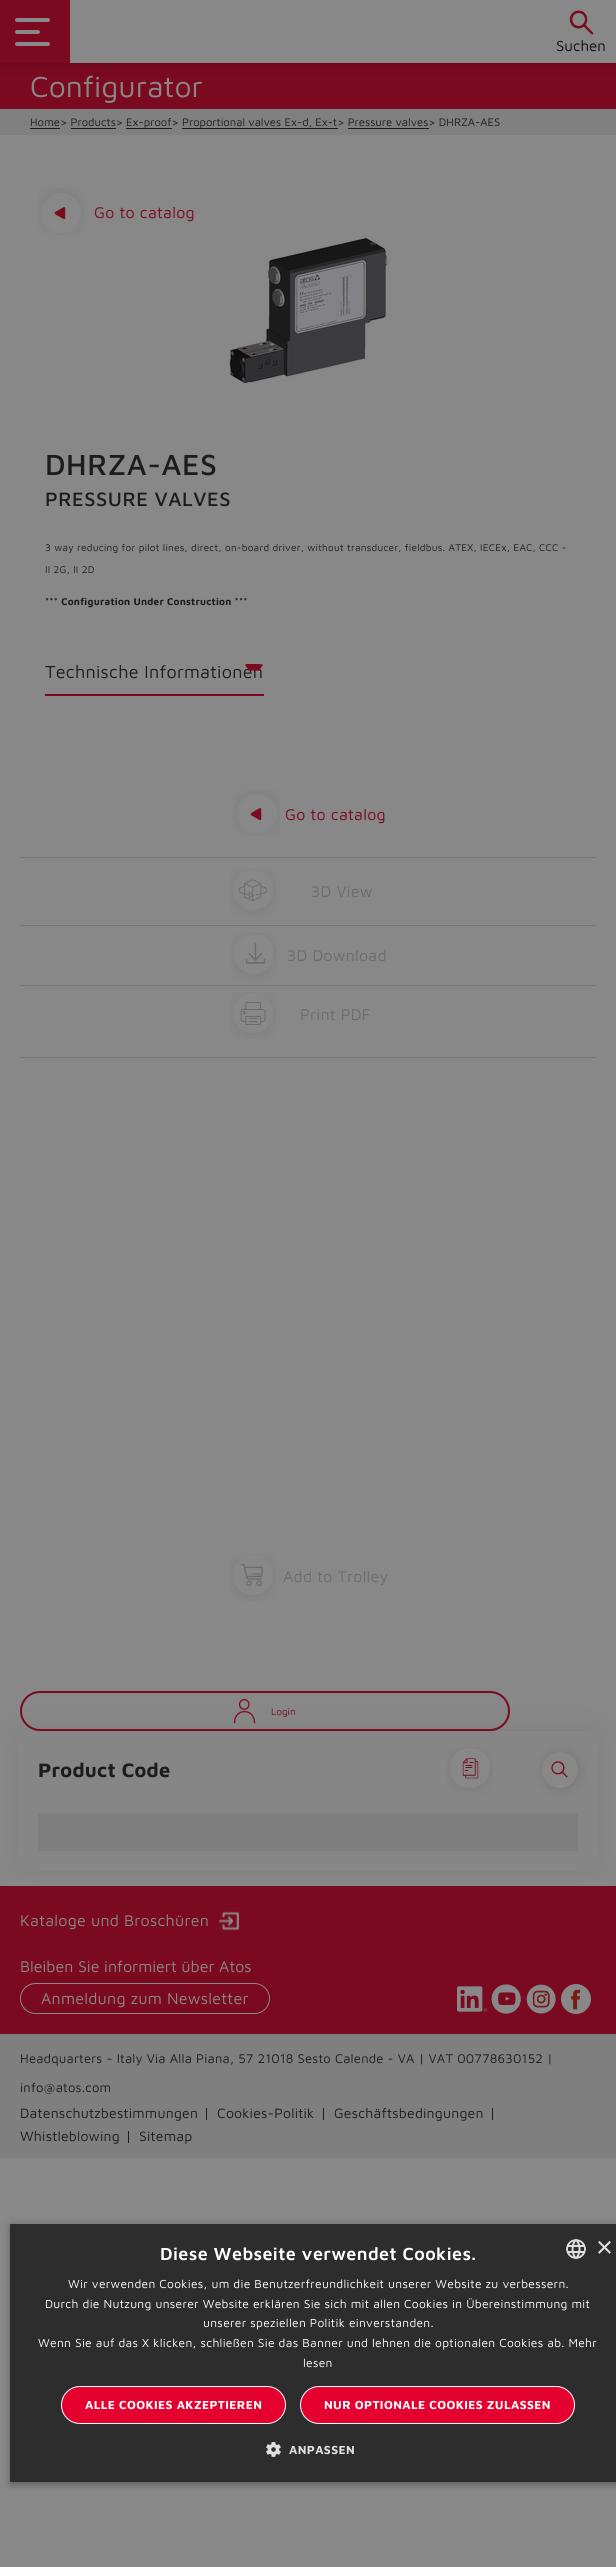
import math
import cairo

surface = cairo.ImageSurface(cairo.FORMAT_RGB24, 616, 2567)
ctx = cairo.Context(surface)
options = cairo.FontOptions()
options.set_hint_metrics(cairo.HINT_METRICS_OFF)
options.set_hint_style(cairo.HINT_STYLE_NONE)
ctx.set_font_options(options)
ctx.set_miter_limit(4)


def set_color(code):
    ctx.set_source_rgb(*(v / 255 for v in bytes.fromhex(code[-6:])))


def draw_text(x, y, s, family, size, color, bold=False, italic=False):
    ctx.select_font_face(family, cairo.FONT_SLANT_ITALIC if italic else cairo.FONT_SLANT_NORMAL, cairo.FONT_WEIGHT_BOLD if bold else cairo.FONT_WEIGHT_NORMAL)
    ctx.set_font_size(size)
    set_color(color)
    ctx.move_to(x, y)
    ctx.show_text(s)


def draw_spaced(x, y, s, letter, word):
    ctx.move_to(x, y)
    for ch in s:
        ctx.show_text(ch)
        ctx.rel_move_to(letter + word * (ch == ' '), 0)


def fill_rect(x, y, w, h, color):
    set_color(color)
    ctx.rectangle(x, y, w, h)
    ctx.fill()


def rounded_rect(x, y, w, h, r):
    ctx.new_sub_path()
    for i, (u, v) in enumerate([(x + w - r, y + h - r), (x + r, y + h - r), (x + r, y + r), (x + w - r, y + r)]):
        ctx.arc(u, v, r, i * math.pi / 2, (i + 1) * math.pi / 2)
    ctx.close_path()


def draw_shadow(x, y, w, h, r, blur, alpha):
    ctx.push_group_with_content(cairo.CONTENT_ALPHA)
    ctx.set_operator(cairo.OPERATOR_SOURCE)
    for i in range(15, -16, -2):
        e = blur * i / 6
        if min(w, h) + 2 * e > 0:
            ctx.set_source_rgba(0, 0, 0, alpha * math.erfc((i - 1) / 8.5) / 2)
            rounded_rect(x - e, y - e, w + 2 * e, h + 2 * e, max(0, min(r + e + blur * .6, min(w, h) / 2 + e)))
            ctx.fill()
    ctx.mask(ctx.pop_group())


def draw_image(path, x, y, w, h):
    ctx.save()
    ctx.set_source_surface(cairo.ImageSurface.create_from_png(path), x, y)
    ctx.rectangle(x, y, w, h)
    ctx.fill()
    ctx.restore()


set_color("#888888")
ctx.paint()
fill_rect(0, 63, 616, 46, "#7b091f")
set_color("#090909")
draw_shadow(-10, -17, 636, 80, 0, 7.5, 0.2)
fill_rect(70, 0, 546, 63, "#888888")
fill_rect(0, 0, 70, 63, "#7b091f")
set_color("#888888")
rounded_rect(15, 18, 35, 4, 2)
ctx.fill()
rounded_rect(15, 30, 25, 4, 2)
ctx.fill()
rounded_rect(15, 42, 35, 4, 2)
ctx.fill()
draw_image("assets/img1.png", 569, 10, 25, 25)
draw_text(556, 51, "Suchen", "Maven Pro", 15, "#090909")
draw_text(30, 97, "Configurator", "Maven Pro", 30, "#888888")
fill_rect(0, 109, 616, 26, "#808080")
draw_text(30, 126, "Home> Products>", "Maven Pro", 11.25, "#1d1c1c")
fill_rect(30, 128, 30, 1, "#1d1c1c")
fill_rect(126, 128, 46, 1, "#1d1c1c")
draw_text(126, 126, "Ex-proof>", "Maven Pro", 11.25, "#1d1c1c")
fill_rect(182, 128, 156, 1, "#1d1c1c")
draw_text(182, 126, "Proportional valves Ex-d, Ex-t> Pressure valves> DHRZA-AES", "Maven Pro", 11.25, "#1d1c1c")
fill_rect(71, 128, 45, 1, "#1d1c1c")
fill_rect(348, 128, 81, 1, "#1d1c1c")
draw_image("assets/img2.png", 38, 188, 46, 47)
ctx.set_font_size(16)
set_color("#7b091f")
draw_spaced(94, 218, "Go to catalog", 0.25, 0)
ctx.select_font_face("Maven Pro Medium")
ctx.set_font_size(30)
set_color("#1d1c1c")
draw_spaced(45, 475, "DHRZA-AES", 0.5, 0)
ctx.set_font_size(20)
draw_spaced(45, 506, "PRESSURE VALVES", 0.5, 0)
ctx.select_font_face("Maven Pro")
ctx.set_font_size(10)
draw_spaced(45, 551, "3 way reducing for pilot lines, direct, on-board driver, without transducer, fieldbus. ATEX, IECEx, EAC, CCC -", 0.25, 0)
draw_spaced(45, 573, "II 2G, II 2D", 0.25, 0)
ctx.select_font_face("Maven Pro", cairo.FONT_SLANT_NORMAL, cairo.FONT_WEIGHT_BOLD)
draw_spaced(45, 605, "*** Configuration Under Construction ***", 0.25, 0)
fill_rect(45, 694, 219, 2, "#7b091f")
ctx.select_font_face("Maven Pro")
ctx.set_font_size(18)
set_color("#1d1c1c")
draw_spaced(45, 678, "Technische Informationen", 0.25, 0)
set_color("#7b091f")
ctx.new_path()
ctx.move_to(247, 664)
ctx.curve_to(246, 664, 245, 664.5, 245, 665)
ctx.line_to(249, 670.5)
ctx.line_to(259, 670.5)
ctx.line_to(263, 665)
ctx.curve_to(262.5, 664.5, 261, 664, 258.5, 664)
ctx.close_path()
ctx.fill()
draw_image("assets/img3.png", 229, 238, 161, 151)
draw_image("assets/img4.png", 234, 789, 46, 47)
ctx.set_font_size(16)
draw_spaced(285, 820, "Go to catalog", 0.25, 0)
fill_rect(20, 857, 576, 1, "#777777")
draw_image("assets/img5.png", 230, 869, 46, 47)
set_color("#6d6c6c")
draw_spaced(311, 897, "3D View", 0.25, 0)
fill_rect(20, 925, 576, 1, "#777777")
draw_image("assets/img6.png", 231, 933, 46, 47)
set_color("#6d6c6c")
draw_spaced(287, 961, "3D Download", 0.25, 0)
fill_rect(20, 985, 576, 1, "#777777")
draw_image("assets/img7.png", 230, 992, 46, 47)
set_color("#6d6c6c")
draw_spaced(300, 1020, "Print PDF", 0.25, 0)
fill_rect(20, 1057, 576, 1, "#777777")
draw_image("assets/img8.png", 230, 1554, 46, 47)
set_color("#6d6c6c")
draw_spaced(283, 1582, "Add to Trolley", 0.25, 0)
set_color("#090909")
draw_shadow(30, 1743, 556, 115, 0, 17, 0.17)
rounded_rect(21, 1692, 488, 38, 19)
set_color("#7b091f")
ctx.stroke()
draw_image("assets/img9.png", 233, 1698, 23, 26)
draw_text(271, 1715, "Login", "Maven Pro", 10, "#7b091f")
fill_rect(17, 1731, 582, 140, "#868686")
ctx.select_font_face("Maven Pro", cairo.FONT_SLANT_NORMAL, cairo.FONT_WEIGHT_BOLD)
ctx.set_font_size(20)
set_color("#1d1c1c")
draw_spaced(38, 1777, "Product Code", 0.25, 0)
draw_image("assets/img10.png", 447, 1747, 46, 47)
set_color("#787777")
draw_shadow(542, 1752, 38, 38, 19, 5, 1)
set_color("#888888")
ctx.arc(560, 1770, 18, 0, 2 * math.pi)
ctx.fill()
draw_image("assets/img11.png", 551, 1761, 17, 17)
fill_rect(38, 1814, 540, 37, "#7f7f7f")
fill_rect(0, 1886, 616, 148, "#7b091f")
ctx.select_font_face("Maven Pro")
ctx.set_font_size(16)
set_color("#888888")
draw_spaced(20, 1926, "Kataloge und Broschüren", 0.25, 0)
draw_image("assets/img12.png", 219, 1911, 20, 20)
draw_text(20, 1972, "Bleiben Sie informiert über Atos", "Maven Pro", 16, "#888888")
rounded_rect(20.5, 1983.5, 249, 30, 15)
ctx.set_line_width(1)
ctx.stroke()
draw_spaced(41, 2004, "Anmeldung zum Newsletter", 0.25, 0)
draw_image("assets/img13.png", 457, 1986, 30, 26)
draw_image("assets/img14.png", 491, 1984, 30, 30)
draw_image("assets/img15.png", 526, 1984, 30, 30)
draw_image("assets/img16.png", 561, 1984, 30, 30)
fill_rect(0, 2034, 616, 124, "#7f7f7f")
ctx.set_font_size(13)
set_color("#1d1c1c")
draw_spaced(20, 2063, "Headquarters - Italy Via Alla Piana, 57 21018 Sesto Calende - VA | VAT 00778630152 |", 0.2, 0)
draw_spaced(20, 2092, "info@atos.com", 0.2, 0)
ctx.set_font_size(14)
draw_spaced(20, 2118, "Datenschutzbestimmungen", 0.2, 0)
fill_rect(206, 2108, 1, 12, "#1d1c1c")
draw_spaced(217, 2118, "Cookies-Politik", 0.2, 0)
fill_rect(323, 2108, 1, 12, "#1d1c1c")
draw_spaced(334, 2118, "Geschäftsbedingungen", 0.2, 0)
fill_rect(492, 2108, 1, 12, "#1d1c1c")
draw_spaced(20, 2141, "Whistleblowing", 0.2, 0)
fill_rect(128, 2131, 1, 12, "#1d1c1c")
draw_spaced(139, 2141, "Sitemap", 0.2, 0)
set_color("#000000")
draw_shadow(11, 2226, 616, 258, 0, 4, 0.35)
fill_rect(10, 2224, 606, 258, "#2d2d2d")
ctx.select_font_face("Maven Pro SemiBold")
ctx.set_font_size(18)
set_color("#ffffff")
draw_spaced(160, 2260, "Diese Webseite verwendet Cookies.", 0.4, 0)
draw_image("assets/img17.png", 566, 2239, 20, 20)
draw_text(596, 2257, "×", "Liberation Sans", 29, "#e0e0e0")
ctx.select_font_face("Maven Pro")
ctx.set_font_size(12)
set_color("#ffffff")
draw_spaced(68, 2288, "Wir verwenden Cookies, um die Benutzerfreundlichkeit unserer Website zu verbessern.", 0.3, 0)
draw_spaced(45, 2308, "Durch die Nutzung unserer Website erklären Sie sich mit allen Cookies in Übereinstimmung mit", 0.3, 0)
draw_spaced(203, 2327, "unserer speziellen Politik einverstanden.", 0.3, 0)
draw_spaced(38, 2347, "Wenn Sie auf das X klicken, schließen Sie das Banner und lehnen die optionalen Cookies ab. Mehr", 0.3, 0)
draw_spaced(303, 2367, "lesen", 0.3, 0)
set_color("#e4012f")
rounded_rect(61.5, 2386.5, 224, 37, 18.5)
ctx.fill_preserve()
set_color("#ffffff")
ctx.stroke()
ctx.select_font_face("Maven Pro", cairo.FONT_SLANT_NORMAL, cairo.FONT_WEIGHT_BOLD)
draw_spaced(85, 2409, "ALLE COOKIES AKZEPTIEREN", 0.4, 0)
set_color("#e4012f")
rounded_rect(300.5, 2386.5, 274, 37, 18.5)
ctx.fill_preserve()
set_color("#ffffff")
ctx.stroke()
draw_spaced(324, 2409, "NUR OPTIONALE COOKIES ZULASSEN", 0.4, 0)
draw_image("assets/img18.png", 266, 2442, 15, 15)
set_color("#e0e0e0")
draw_spaced(289, 2454, "ANPASSEN", 0.4, 0)
surface.write_to_png("output.png")
